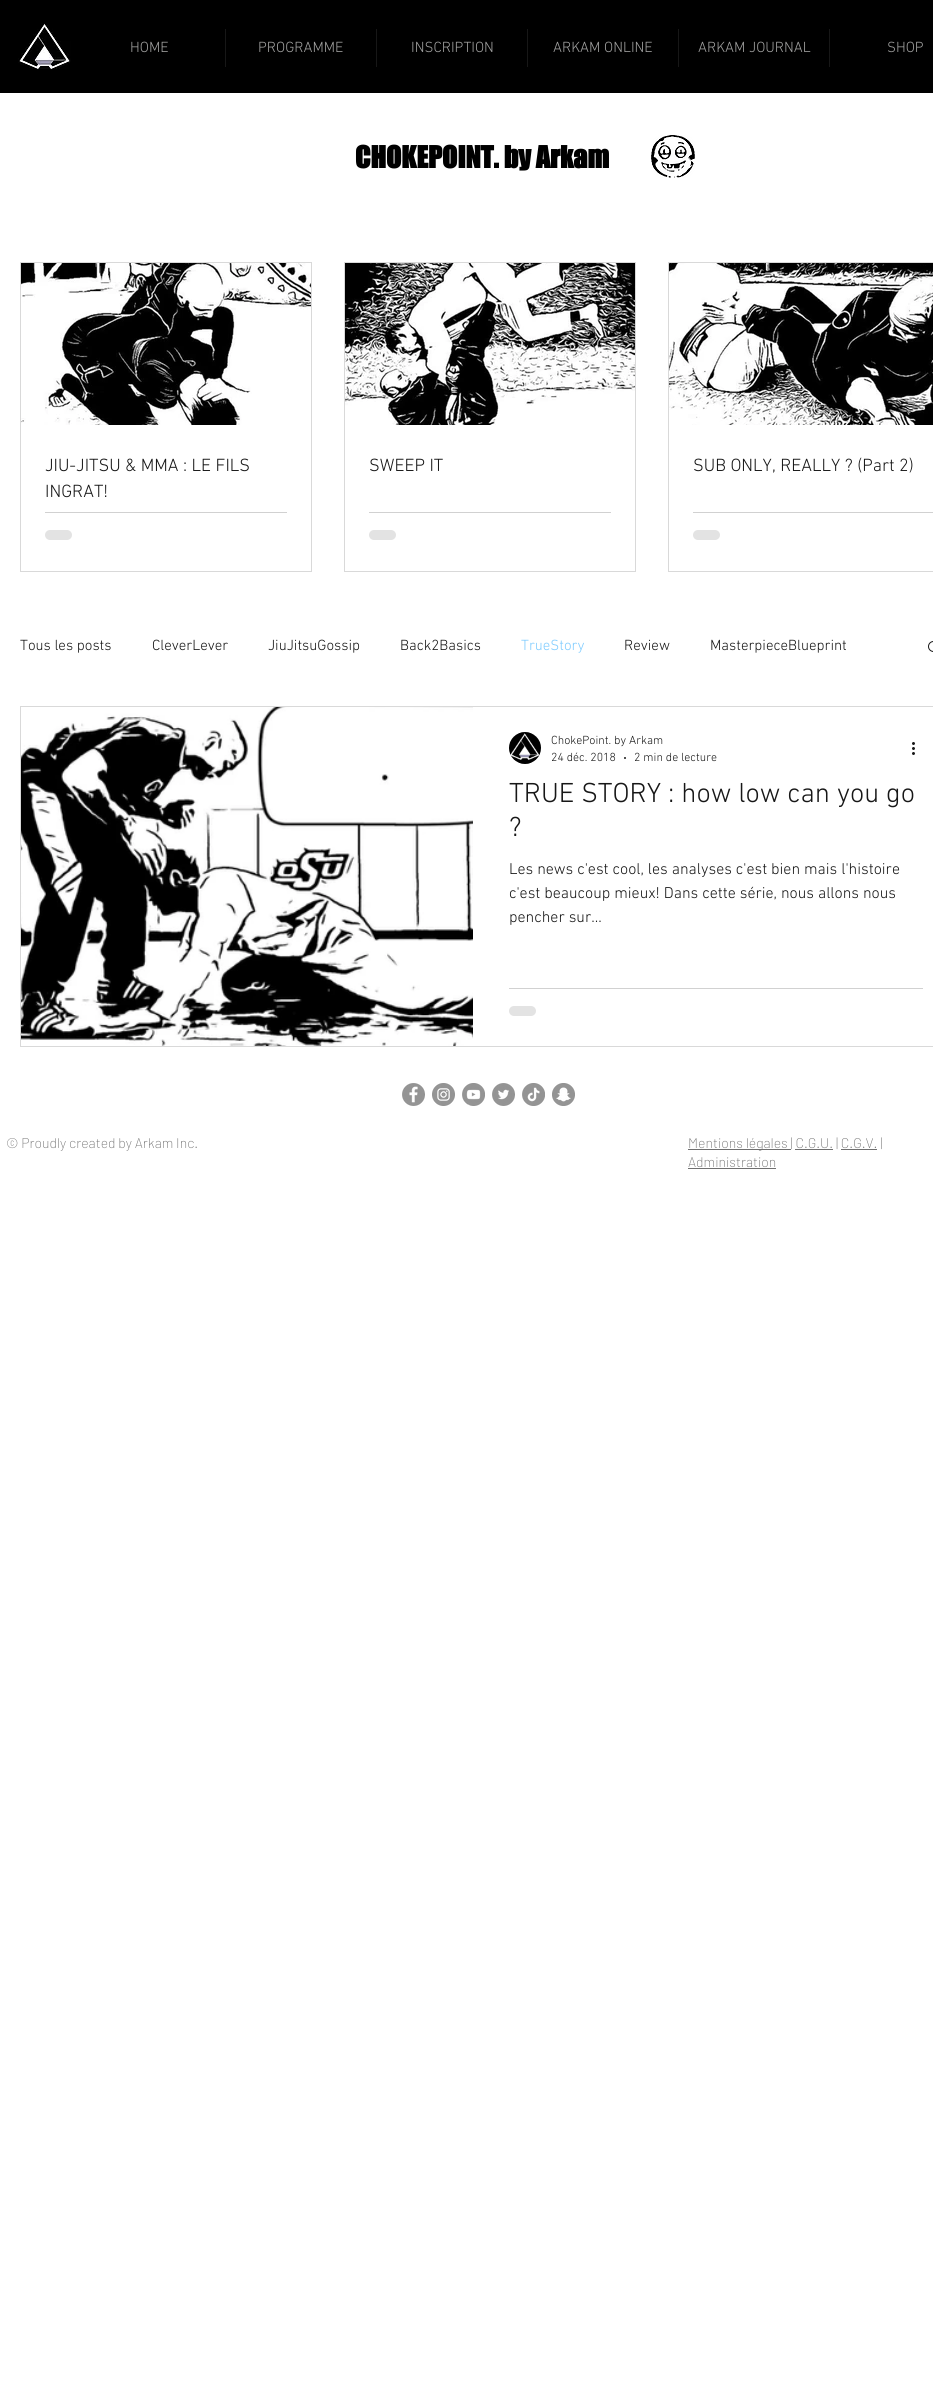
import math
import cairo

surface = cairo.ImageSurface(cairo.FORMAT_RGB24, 933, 2393)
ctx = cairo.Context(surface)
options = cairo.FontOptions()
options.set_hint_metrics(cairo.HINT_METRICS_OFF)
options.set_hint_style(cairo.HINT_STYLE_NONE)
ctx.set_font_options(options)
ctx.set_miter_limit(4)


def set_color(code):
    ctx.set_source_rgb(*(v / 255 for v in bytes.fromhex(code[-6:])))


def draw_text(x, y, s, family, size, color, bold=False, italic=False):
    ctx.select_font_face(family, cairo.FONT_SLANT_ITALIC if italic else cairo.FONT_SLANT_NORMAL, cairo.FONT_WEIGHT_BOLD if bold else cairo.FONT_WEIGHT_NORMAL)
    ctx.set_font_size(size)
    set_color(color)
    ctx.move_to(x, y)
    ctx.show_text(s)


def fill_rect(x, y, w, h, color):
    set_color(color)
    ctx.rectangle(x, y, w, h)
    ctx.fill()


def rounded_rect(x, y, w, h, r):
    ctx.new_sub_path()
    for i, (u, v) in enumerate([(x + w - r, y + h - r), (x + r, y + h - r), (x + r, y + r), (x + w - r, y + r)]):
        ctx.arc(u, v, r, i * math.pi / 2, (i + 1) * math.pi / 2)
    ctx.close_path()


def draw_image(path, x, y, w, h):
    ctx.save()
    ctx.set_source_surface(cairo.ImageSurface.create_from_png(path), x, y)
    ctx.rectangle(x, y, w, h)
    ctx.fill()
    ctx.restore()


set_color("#ffffff")
ctx.paint()
fill_rect(0, 0, 933, 93, "#000000")
draw_image("assets/img1.png", 18, 23, 53, 46)
draw_text(130, 52, "HOME", "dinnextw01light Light", 15, "#a0a09f")
fill_rect(225, 29, 1, 38, "#171717")
draw_text(258, 52, "PROGRAMME", "dinnextw01light Light", 15, "#a0a09f")
fill_rect(376, 29, 1, 38, "#171717")
draw_text(411, 52, "INSCRIPTION", "dinnextw01light Light", 15, "#a0a09f")
fill_rect(527, 29, 1, 38, "#171717")
draw_text(553, 52, "ARKAM ONLINE", "dinnextw01light Light", 15, "#a0a09f")
fill_rect(678, 29, 1, 38, "#171717")
draw_text(698, 52, "ARKAM JOURNAL", "dinnextw01light Light", 15, "#a0a09f")
fill_rect(829, 29, 1, 38, "#171717")
draw_text(887, 52, "SHOP", "dinnextw01light Light", 15, "#a0a09f")
draw_text(355, 168, "CHOKEPOINT. by Arkam", "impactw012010", 28, "#000000", bold=True)
draw_image("assets/img2.png", 651, 135, 44, 43)
ctx.rectangle(20.5, 262.5, 291, 309)
set_color("#d9d9d9")
ctx.set_line_width(1)
ctx.stroke()
draw_image("assets/img3.png", 21, 263, 290, 162)
draw_text(45, 471, "JIU-JITSU & MMA : LE FILS", "dinnextw01light Light", 18, "#171717")
draw_text(45, 497, "INGRAT!", "dinnextw01light Light", 18, "#171717")
fill_rect(45, 512, 242, 1, "#d1d1d1")
set_color("#e3e3e3")
rounded_rect(45, 530, 27, 10, 5)
ctx.fill()
ctx.rectangle(344.5, 262.5, 291, 309)
set_color("#d9d9d9")
ctx.stroke()
draw_image("assets/img4.png", 345, 263, 290, 162)
draw_text(369, 471, "SWEEP IT", "dinnextw01light Light", 18, "#171717")
fill_rect(369, 512, 242, 1, "#d1d1d1")
set_color("#e3e3e3")
rounded_rect(369, 530, 27, 10, 5)
ctx.fill()
ctx.rectangle(668.5, 262.5, 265, 309)
set_color("#d9d9d9")
ctx.stroke()
draw_image("assets/img5.png", 669, 263, 264, 162)
draw_text(693, 471, "SUB ONLY, REALLY ? (Part 2)", "dinnextw01light Light", 18, "#171717")
fill_rect(693, 512, 240, 1, "#d1d1d1")
set_color("#e3e3e3")
rounded_rect(693, 530, 27, 10, 5)
ctx.fill()
draw_text(20, 650, "Tous les posts", "dinnextw01light Light", 15, "#171717")
draw_text(152, 650, "CleverLever", "dinnextw01light Light", 15, "#171717")
draw_text(268, 650, "JiuJitsuGossip", "dinnextw01light Light", 15, "#171717")
draw_text(400, 650, "Back2Basics", "dinnextw01light Light", 15, "#171717")
draw_text(521, 650, "TrueStory", "dinnextw01light Light", 15, "#7fccff")
draw_text(624, 650, "Review", "dinnextw01light Light", 15, "#171717")
draw_text(710, 650, "MasterpieceBlueprint", "dinnextw01light Light", 15, "#171717")
draw_image("assets/img6.png", 928, 641, 5, 11)
ctx.rectangle(20.5, 706.5, 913, 340)
set_color("#d9d9d9")
ctx.stroke()
draw_image("assets/img7.png", 21, 707, 452, 339)
draw_image("assets/img8.png", 509, 732, 32, 32)
draw_text(551, 744, "ChokePoint. by Arkam", "dinnextw01light Light", 12, "#171717")
draw_text(551, 761, "24 déc. 2018", "dinnextw01light Light", 12, "#171717")
ctx.new_path()
ctx.arc(625, 758, 1, 0, 2 * math.pi)
ctx.fill()
draw_text(634, 761, "2 min de lecture", "dinnextw01light Light", 12, "#171717")
draw_image("assets/img9.png", 912, 742, 3, 13)
draw_text(509, 802, "TRUE STORY : how low can you go", "dinnextw01light Light", 28, "#171717")
draw_text(509, 836, "?", "dinnextw01light Light", 28, "#171717")
draw_text(509, 874, "Les news c'est cool, les analyses c'est bien mais l'histoire", "dinnextw01light Light", 16, "#171717")
draw_text(509, 898, "c'est beaucoup mieux! Dans cette série, nous allons nous", "dinnextw01light Light", 16, "#171717")
draw_text(509, 922, "pencher sur...", "dinnextw01light Light", 16, "#171717")
fill_rect(509, 988, 414, 1, "#d1d1d1")
set_color("#e3e3e3")
rounded_rect(509, 1006, 27, 10, 5)
ctx.fill()
draw_image("assets/img10.png", 402, 1083, 23, 23)
draw_image("assets/img11.png", 432, 1083, 23, 23)
draw_image("assets/img12.png", 462, 1083, 23, 23)
draw_image("assets/img13.png", 492, 1083, 23, 23)
draw_image("assets/img14.png", 522, 1083, 23, 23)
draw_image("assets/img15.png", 552, 1083, 23, 23)
draw_text(6, 1148, "© Proudly created by Arkam Inc.", "Barlow ExtraLight", 14, "#707070")
fill_rect(688, 1149, 103, 1, "#707070")
draw_text(688, 1148, "Mentions légales | C.G.U. | C.G.V. |", "Barlow ExtraLight", 14, "#707070")
fill_rect(795, 1149, 38, 1, "#707070")
fill_rect(841, 1149, 36, 1, "#707070")
draw_text(688, 1167, "Administration", "Barlow ExtraLight", 14, "#707070")
fill_rect(688, 1168, 88, 1, "#707070")
surface.write_to_png("output.png")
